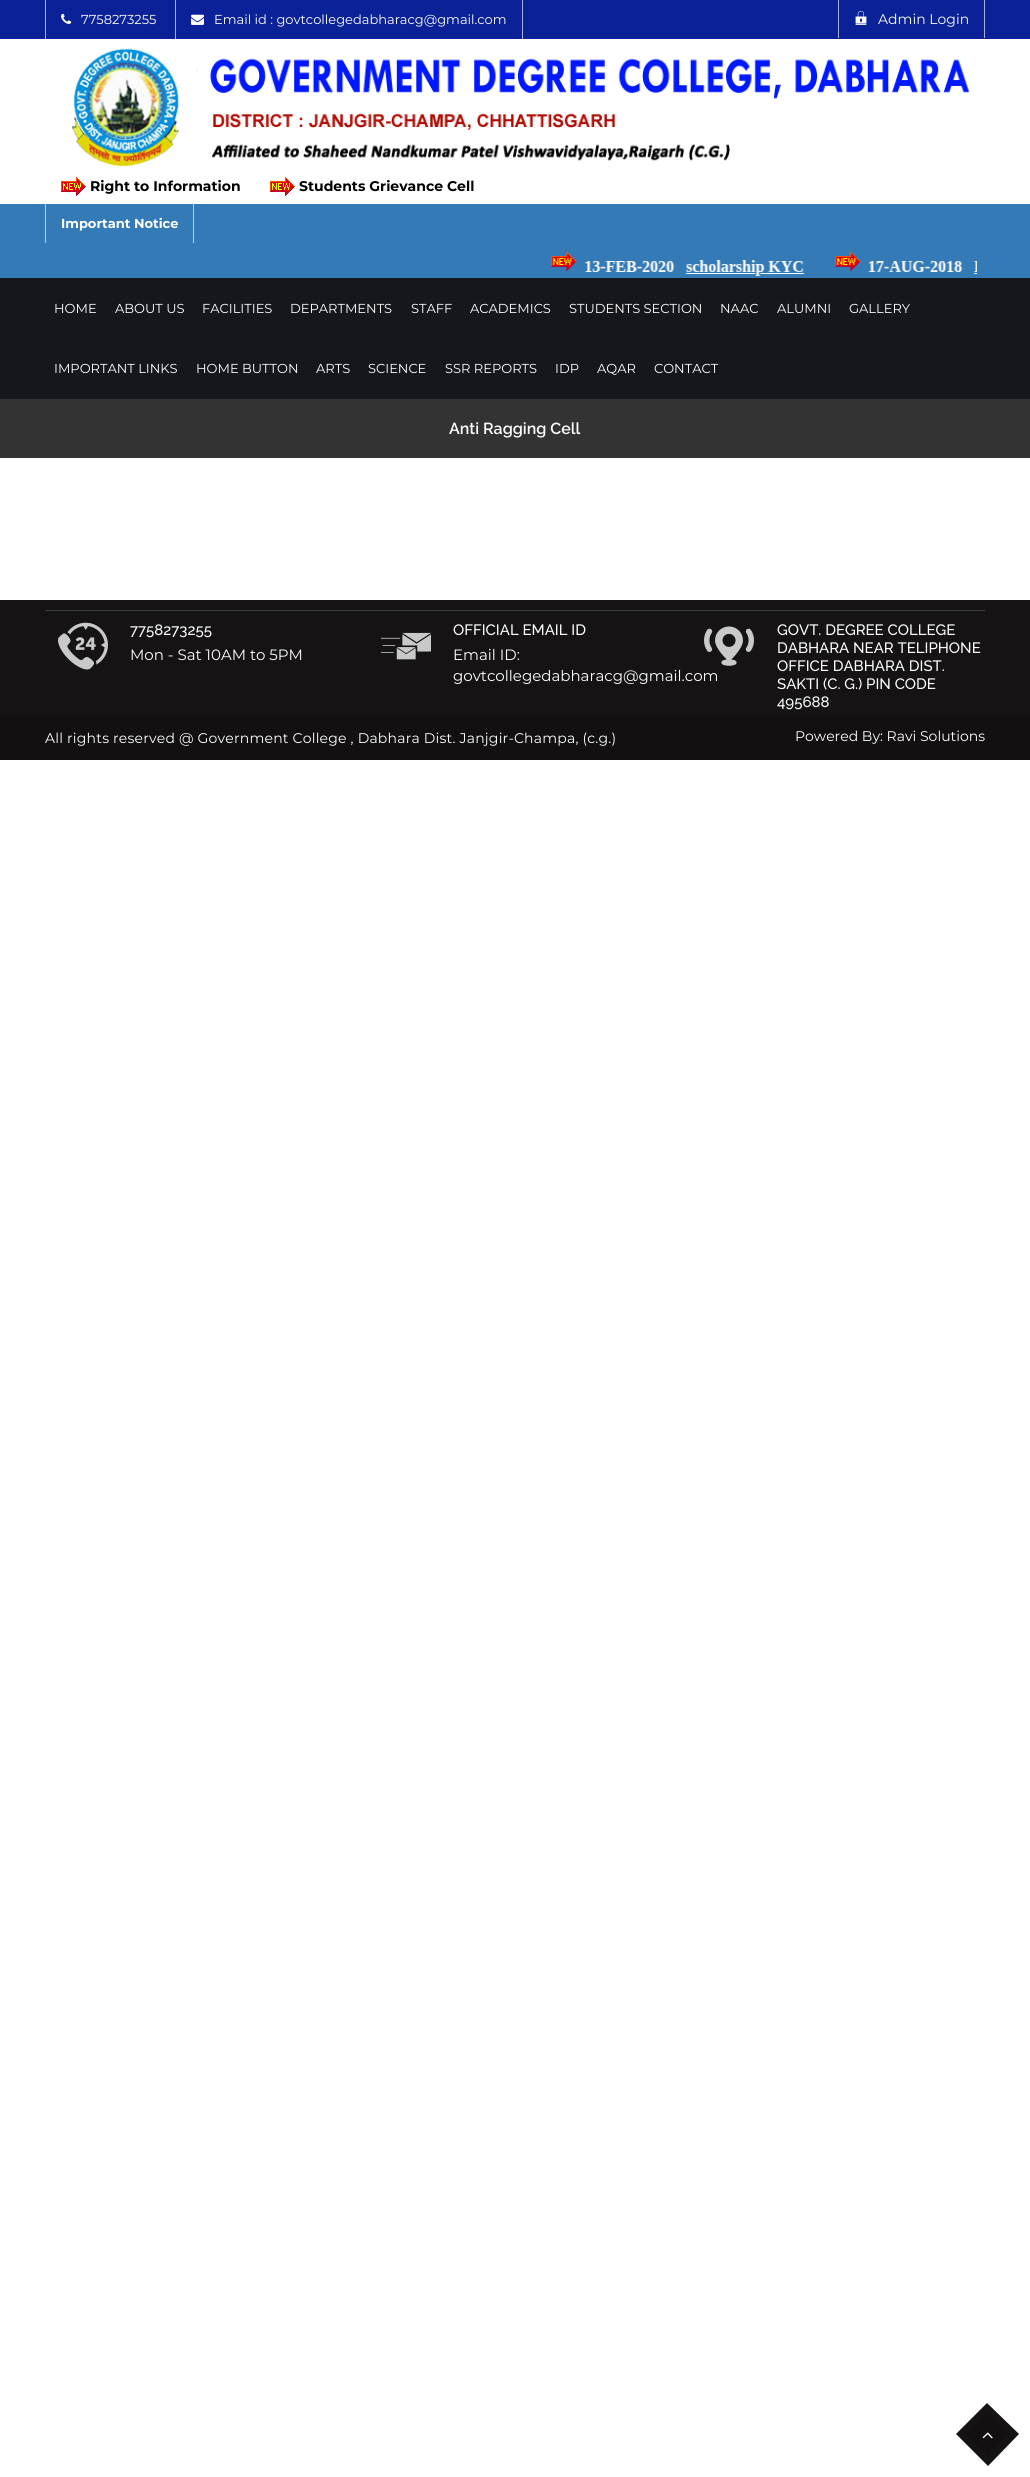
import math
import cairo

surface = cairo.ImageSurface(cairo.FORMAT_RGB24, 1030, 2477)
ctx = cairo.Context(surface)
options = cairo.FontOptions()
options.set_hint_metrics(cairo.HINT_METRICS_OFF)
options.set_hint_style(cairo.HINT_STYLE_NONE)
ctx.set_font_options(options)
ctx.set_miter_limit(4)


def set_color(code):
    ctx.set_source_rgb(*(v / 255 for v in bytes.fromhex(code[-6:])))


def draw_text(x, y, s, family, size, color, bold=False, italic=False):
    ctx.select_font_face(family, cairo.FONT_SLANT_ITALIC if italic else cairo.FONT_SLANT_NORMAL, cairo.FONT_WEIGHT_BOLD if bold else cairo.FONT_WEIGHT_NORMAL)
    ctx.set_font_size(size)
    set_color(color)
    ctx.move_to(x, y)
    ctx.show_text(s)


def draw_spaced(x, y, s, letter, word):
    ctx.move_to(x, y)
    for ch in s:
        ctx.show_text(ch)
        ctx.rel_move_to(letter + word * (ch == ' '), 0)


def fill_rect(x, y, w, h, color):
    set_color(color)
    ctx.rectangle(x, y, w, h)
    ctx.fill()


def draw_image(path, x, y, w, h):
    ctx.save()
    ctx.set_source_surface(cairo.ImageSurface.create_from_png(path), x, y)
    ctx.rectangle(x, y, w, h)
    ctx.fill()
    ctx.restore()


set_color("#ffffff")
ctx.paint()
fill_rect(0, 0, 1030, 39, "#0a2197")
fill_rect(45, 0, 1, 39, "#a9b1db")
draw_image("assets/img1.png", 61, 13, 11, 11)
draw_text(81, 24, "7758273255", "Montserrat", 13, "#ffffff")
fill_rect(522, 0, 1, 39, "#a9b1db")
fill_rect(175, 0, 1, 39, "#a9b1db")
draw_image("assets/img2.png", 191, 14, 13, 11)
draw_text(214, 24, "Email id : govtcollegedabharacg@gmail.com", "Montserrat", 13, "#ffffff")
fill_rect(984, 0, 1, 38, "#a9b1db")
fill_rect(838, 0, 1, 38, "#a9b1db")
draw_image("assets/img3.png", 855, 10, 12, 15)
draw_text(878, 24, "Admin Login", "Montserrat", 14, "#ffffff")
draw_image("assets/img4.png", 72, 48, 898, 119)
draw_image("assets/img5.png", 61, 177, 25, 19)
draw_text(90, 191, "Right to Information", "Montserrat", 14, "#000000", bold=True)
draw_image("assets/img5.png", 270, 177, 25, 19)
draw_text(299, 191, "Students Grievance Cell", "Montserrat", 14, "#000000", bold=True)
fill_rect(0, 204, 1030, 74, "#337ab7")
fill_rect(193, 204, 1, 39, "#b8d0e6")
fill_rect(45, 204, 1, 39, "#b8d0e6")
draw_text(61, 228, "Important Notice", "Montserrat", 13, "#ffffff", bold=True)
draw_image("assets/img6.png", 551, 252, 426, 24)
fill_rect(0, 278, 1030, 121, "#16171c")
draw_text(54, 313, "HOME", "Montserrat", 13, "#ffffff")
draw_text(115, 313, "ABOUT US", "Montserrat", 13, "#ffffff")
draw_text(202, 313, "FACILITIES", "Montserrat", 13, "#ffffff")
draw_text(290, 313, "DEPARTMENTS", "Montserrat", 13, "#ffffff")
draw_text(411, 313, "STAFF", "Montserrat", 13, "#ffffff")
draw_text(470, 313, "ACADEMICS", "Montserrat", 13, "#ffffff")
draw_text(569, 313, "STUDENTS SECTION", "Montserrat", 13, "#ffffff")
draw_text(720, 313, "NAAC", "Montserrat", 13, "#ffffff")
draw_text(777, 313, "ALUMNI", "Montserrat", 13, "#ffffff")
draw_text(849, 313, "GALLERY", "Montserrat", 13, "#ffffff")
draw_text(54, 373, "IMPORTANT LINKS", "Montserrat", 13, "#ffffff")
draw_text(196, 373, "HOME BUTTON", "Montserrat", 13, "#ffffff")
draw_text(316, 373, "ARTS", "Montserrat", 13, "#ffffff")
draw_text(368, 373, "SCIENCE", "Montserrat", 13, "#ffffff")
draw_text(445, 373, "SSR REPORTS", "Montserrat", 13, "#ffffff")
draw_text(555, 373, "IDP", "Montserrat", 13, "#ffffff")
draw_text(597, 373, "AQAR", "Montserrat", 13, "#ffffff")
draw_text(654, 373, "CONTACT", "Montserrat", 13, "#ffffff")
fill_rect(0, 399, 1030, 59, "#333333")
draw_text(449, 434, "Anti Ragging Cell", "Raleway SemiBold", 16, "#ffffff")
fill_rect(0, 600, 1030, 116, "#151314")
fill_rect(45, 610, 940, 1, "#383d41")
draw_image("assets/img7.png", 58, 622, 50, 48)
draw_text(130, 635, "7758273255", "Raleway Medium", 15, "#ffffff")
draw_text(130, 660, "Mon - Sat 10AM to 5PM", "Montserrat", 15, "#ffffff")
draw_image("assets/img8.png", 381, 632, 50, 28)
draw_text(453, 635, "OFFICIAL EMAIL ID", "Raleway Medium", 15, "#ffffff")
draw_text(453, 660, "Email ID:", "Montserrat", 15, "#ffffff")
draw_text(453, 681, "govtcollegedabharacg@gmail.com", "Montserrat", 15, "#ffffff")
draw_image("assets/img9.png", 704, 626, 50, 40)
draw_text(777, 635, "GOVT. DEGREE COLLEGE", "Raleway Medium", 15, "#ffffff")
draw_text(777, 653, "DABHARA NEAR TELIPHONE", "Raleway Medium", 15, "#ffffff")
draw_text(777, 671, "OFFICE DABHARA DIST.", "Raleway Medium", 15, "#ffffff")
draw_text(777, 689, "SAKTI (C. G.) PIN CODE", "Raleway Medium", 15, "#ffffff")
draw_text(777, 707, "495688", "Raleway Medium", 15, "#ffffff")
fill_rect(0, 716, 1030, 44, "#121011")
ctx.select_font_face("Montserrat")
ctx.set_font_size(14)
set_color("#ffffff")
draw_spaced(45, 743, "All rights reserved @ Government College , Dabhara Dist. Janjgir-Champa, (c.g.)", 0.2, 0)
draw_text(795, 741, "Powered By: Ravi Solutions", "Montserrat", 14, "#ffffff")
set_color("#151314")
ctx.new_path()
ctx.move_to(987, 2403)
ctx.line_to(1019, 2434)
ctx.line_to(988, 2466)
ctx.line_to(956, 2434)
ctx.close_path()
ctx.fill()
set_color("#121011")
ctx.new_path()
ctx.move_to(988, 2413)
ctx.line_to(1009, 2434)
ctx.line_to(988, 2456)
ctx.line_to(966, 2434)
ctx.close_path()
ctx.fill()
draw_image("assets/img10.png", 982, 2432, 11, 7)
surface.write_to_png("output.png")
